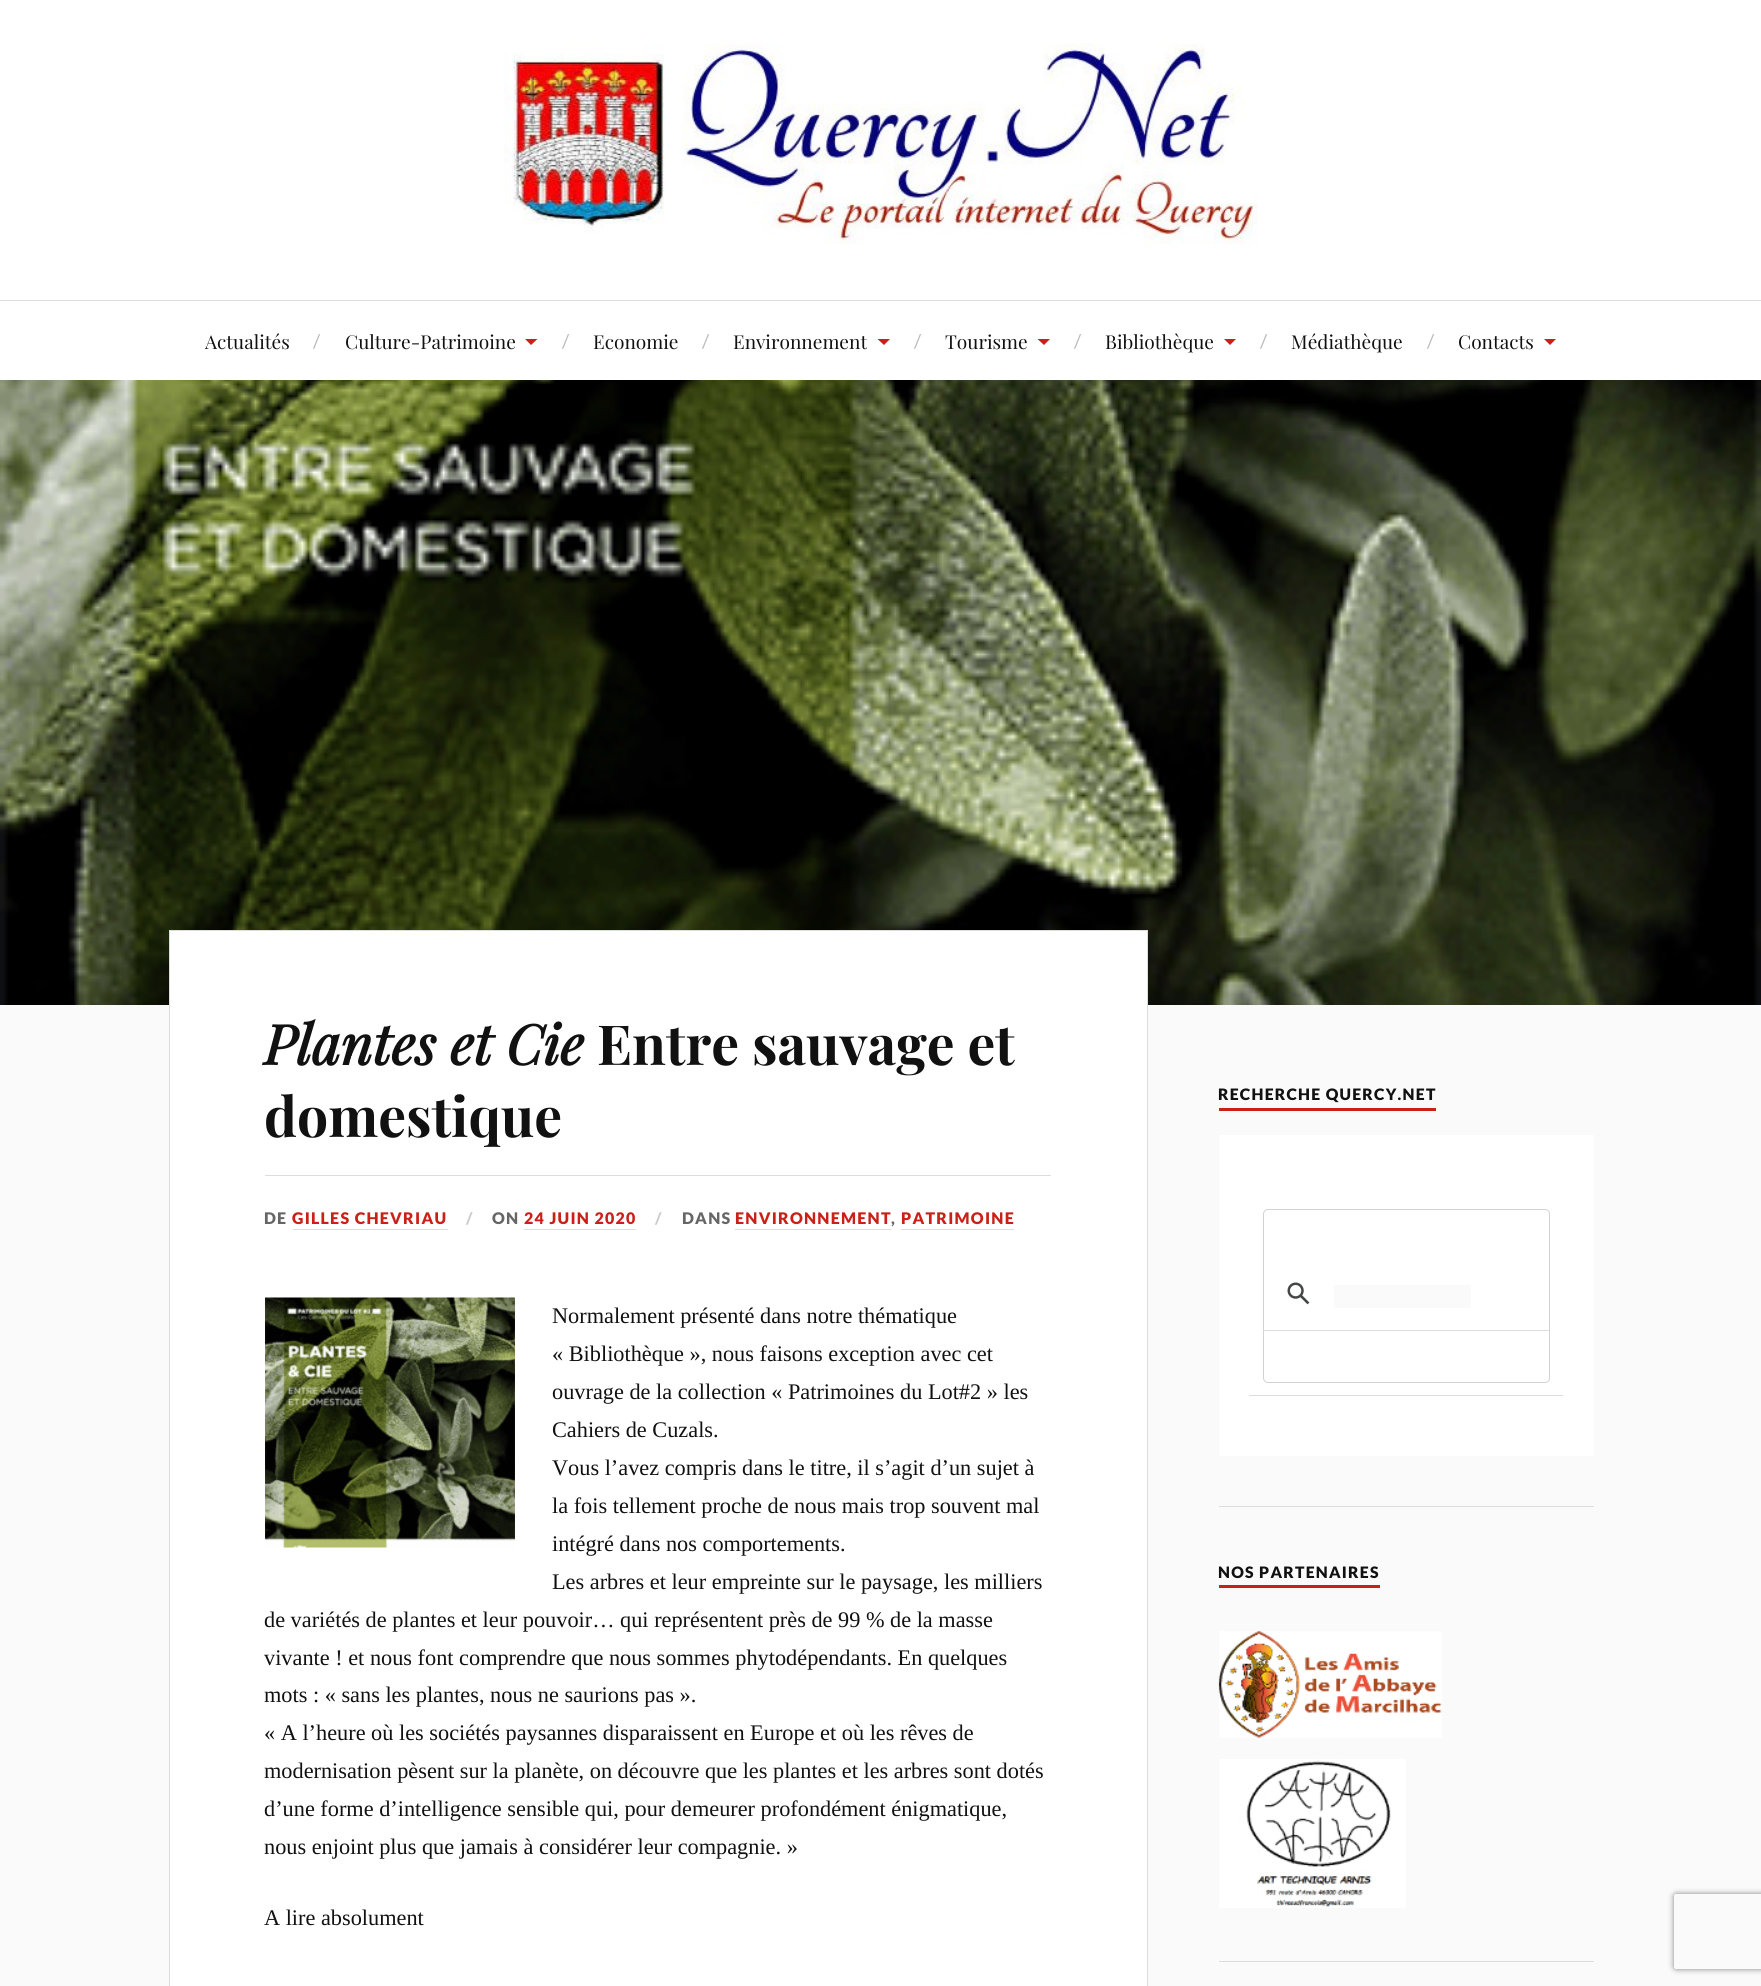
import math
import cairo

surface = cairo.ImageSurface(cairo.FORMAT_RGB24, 1761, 1986)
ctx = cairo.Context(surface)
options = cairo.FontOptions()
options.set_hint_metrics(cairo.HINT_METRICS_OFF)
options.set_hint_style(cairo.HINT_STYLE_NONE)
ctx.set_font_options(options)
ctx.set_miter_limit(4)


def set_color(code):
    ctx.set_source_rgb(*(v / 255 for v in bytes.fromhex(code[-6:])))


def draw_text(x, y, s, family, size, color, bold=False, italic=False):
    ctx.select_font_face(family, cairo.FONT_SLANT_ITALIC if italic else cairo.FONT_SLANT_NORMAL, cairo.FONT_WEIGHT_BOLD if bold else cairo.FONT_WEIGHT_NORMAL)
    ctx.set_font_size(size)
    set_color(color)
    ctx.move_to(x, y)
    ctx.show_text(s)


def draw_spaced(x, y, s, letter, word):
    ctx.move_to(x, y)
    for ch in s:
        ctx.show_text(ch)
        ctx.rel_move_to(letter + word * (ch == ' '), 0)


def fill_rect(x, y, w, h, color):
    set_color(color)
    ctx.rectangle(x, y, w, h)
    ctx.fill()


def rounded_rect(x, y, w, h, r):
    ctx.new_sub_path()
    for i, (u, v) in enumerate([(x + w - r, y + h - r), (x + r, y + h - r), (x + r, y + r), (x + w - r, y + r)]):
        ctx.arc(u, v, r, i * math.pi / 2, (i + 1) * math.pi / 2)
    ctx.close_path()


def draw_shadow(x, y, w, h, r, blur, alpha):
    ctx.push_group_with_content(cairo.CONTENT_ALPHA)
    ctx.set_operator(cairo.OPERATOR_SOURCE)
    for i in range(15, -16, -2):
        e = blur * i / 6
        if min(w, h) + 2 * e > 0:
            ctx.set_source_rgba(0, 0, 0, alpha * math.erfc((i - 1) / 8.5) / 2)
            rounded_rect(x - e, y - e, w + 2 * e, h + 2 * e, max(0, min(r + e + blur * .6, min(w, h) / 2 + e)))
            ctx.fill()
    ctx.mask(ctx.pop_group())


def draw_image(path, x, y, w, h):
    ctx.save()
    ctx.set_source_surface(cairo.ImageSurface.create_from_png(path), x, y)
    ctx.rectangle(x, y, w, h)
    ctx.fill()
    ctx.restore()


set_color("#fafafa")
ctx.paint()
fill_rect(0, 0, 1761, 300, "#ffffff")
draw_image("assets/img1.png", 504, 43, 754, 201)
fill_rect(0, 301, 1761, 79, "#ffffff")
fill_rect(0, 300, 1761, 1, "#dddddd")
draw_text(205, 349, "Actualités", "Playfair Display", 19.1, "#111111")
draw_text(313, 348, "/", "Lato", 19, "#bbbbbb")
draw_text(345, 349, "Culture-Patrimoine", "Playfair Display", 19.1, "#111111")
set_color("#ca2017")
ctx.new_path()
ctx.move_to(525, 339)
ctx.line_to(537.5, 339)
ctx.line_to(531, 345)
ctx.close_path()
ctx.fill()
draw_text(562, 348, "/", "Lato", 19, "#bbbbbb")
draw_text(593, 349, "Economie", "Playfair Display", 19.1, "#111111")
draw_text(702, 348, "/", "Lato", 19, "#bbbbbb")
draw_text(733, 349, "Environnement", "Playfair Display", 19.1, "#111111")
set_color("#ca2017")
ctx.new_path()
ctx.move_to(877.5, 339)
ctx.line_to(890, 339)
ctx.line_to(884, 345)
ctx.close_path()
ctx.fill()
draw_text(914, 348, "/", "Lato", 19, "#bbbbbb")
draw_text(945, 349, "Tourisme", "Playfair Display", 19.1, "#111111")
set_color("#ca2017")
ctx.new_path()
ctx.move_to(1037.5, 339)
ctx.line_to(1050, 339)
ctx.line_to(1044, 345)
ctx.close_path()
ctx.fill()
draw_text(1074, 348, "/", "Lato", 19, "#bbbbbb")
draw_text(1105, 349, "Bibliothèque", "Playfair Display", 19.1, "#111111")
set_color("#ca2017")
ctx.new_path()
ctx.move_to(1224, 339)
ctx.line_to(1236, 339)
ctx.line_to(1230, 345)
ctx.close_path()
ctx.fill()
draw_text(1260, 348, "/", "Lato", 19, "#bbbbbb")
draw_text(1291, 349, "Médiathèque", "Playfair Display", 19.1, "#111111")
draw_text(1427, 348, "/", "Lato", 19, "#bbbbbb")
draw_text(1458, 349, "Contacts", "Playfair Display", 19.1, "#111111")
set_color("#ca2017")
ctx.new_path()
ctx.move_to(1544, 339)
ctx.line_to(1556, 339)
ctx.line_to(1550, 345)
ctx.close_path()
ctx.fill()
draw_image("assets/img2.png", 0, 380, 1761, 625)
set_color("#ffffff")
ctx.rectangle(169.5, 930.5, 978, 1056)
ctx.fill_preserve()
set_color("#dddddd")
ctx.set_line_width(1)
ctx.stroke()
draw_text(264, 1065, "Plantes et Cie", "Playfair Display", 55.25, "#111111", bold=True, italic=True)
draw_text(597, 1065, "Entre sauvage et", "Playfair Display", 55.25, "#111111", bold=True)
draw_text(264, 1137, "domestique", "Playfair Display", 55.25, "#111111", bold=True)
fill_rect(265, 1175, 786, 1, "#dddddd")
ctx.select_font_face("Lato Black")
ctx.set_font_size(16)
set_color("#666666")
draw_spaced(264, 1224, "DE", 1.25, 0)
set_color("#ca2017")
draw_spaced(292, 1224, "GILLES CHEVRIAU", 1.25, 0)
fill_rect(293, 1229, 155, 1, "#dddddd")
set_color("#cccccc")
draw_spaced(466, 1224, "/", 1.25, 0)
set_color("#666666")
draw_spaced(492, 1224, "ON", 1.25, 0)
set_color("#ca2017")
draw_spaced(524, 1224, "24 JUIN 2020", 1.25, 0)
fill_rect(524, 1229, 112, 1, "#dddddd")
set_color("#cccccc")
draw_spaced(655, 1224, "/", 1.25, 0)
set_color("#666666")
draw_spaced(682, 1224, "DANS", 1.25, 0)
set_color("#ca2017")
draw_spaced(735, 1224, "ENVIRONNEMENT", 1.25, 0)
fill_rect(735, 1229, 156, 1, "#dddddd")
set_color("#666666")
draw_spaced(891, 1224, ",", 1.25, 0)
set_color("#ca2017")
draw_spaced(901, 1224, "PATRIMOINE", 1.25, 0)
fill_rect(901, 1229, 113, 1, "#dddddd")
draw_image("assets/img3.png", 265, 1297, 250, 251)
draw_text(552, 1323, "Normalement présenté dans notre thématique", "Liberation Serif", 22.3, "#111111")
draw_text(552, 1361, "« Bibliothèque », nous faisons exception avec cet", "Liberation Serif", 22.3, "#111111")
draw_text(552, 1399, "ouvrage de la collection « Patrimoines du Lot#2 » les", "Liberation Serif", 22.3, "#111111")
draw_text(552, 1437, "Cahiers de Cuzals.", "Liberation Serif", 22.3, "#111111")
draw_text(552, 1475, "Vous l’avez compris dans le titre, il s’agit d’un sujet à", "Liberation Serif", 22.3, "#111111")
draw_text(552, 1513, "la fois tellement proche de nous mais trop souvent mal", "Liberation Serif", 22.3, "#111111")
draw_text(552, 1551, "intégré dans nos comportements.", "Liberation Serif", 22.3, "#111111")
draw_text(552, 1589, "Les arbres et leur empreinte sur le paysage, les milliers", "Liberation Serif", 22.3, "#111111")
draw_text(264, 1627, "de variétés de plantes et leur pouvoir… qui représentent près de 99 % de la masse", "Liberation Serif", 22.3, "#111111")
draw_text(264, 1665, "vivante ! et nous font comprendre que nous sommes phytodépendants. En quelques", "Liberation Serif", 22.3, "#111111")
draw_text(264, 1702, "mots : « sans les plantes, nous ne saurions pas ».", "Liberation Serif", 22.3, "#111111")
draw_text(264, 1740, "« A l’heure où les sociétés paysannes disparaissent en Europe et où les rêves de", "Liberation Serif", 22.3, "#111111")
draw_text(264, 1778, "modernisation pèsent sur la planète, on découvre que les plantes et les arbres sont dotés", "Liberation Serif", 22.3, "#111111")
draw_text(264, 1816, "d’une forme d’intelligence sensible qui, pour demeurer profondément énigmatique,", "Liberation Serif", 22.3, "#111111")
draw_text(264, 1854, "nous enjoint plus que jamais à considérer leur compagnie. »", "Liberation Serif", 22.3, "#111111")
draw_text(264, 1925, "A lire absolument", "Liberation Serif", 22.3, "#111111")
fill_rect(1219, 1108, 217, 3, "#ca2017")
ctx.select_font_face("Lato Black")
ctx.set_font_size(15.75)
set_color("#111111")
draw_spaced(1218, 1100, "RECHERCHE QUERCY.NET", 1.25, 0)
fill_rect(1219, 1135, 375, 321, "#ffffff")
fill_rect(1249, 1395, 314, 1, "#dddddd")
rounded_rect(1263.5, 1209.5, 286, 173, 4.5)
set_color("#d2d2d2")
ctx.stroke()
draw_image("assets/img4.png", 1287, 1282, 23, 23)
fill_rect(1334, 1285, 137, 23, "#fafafa")
fill_rect(1263, 1330, 286, 1, "#dddddd")
fill_rect(1219, 1506, 375, 1, "#dddddd")
fill_rect(1219, 1585, 161, 3, "#ca2017")
set_color("#111111")
draw_spaced(1218, 1578, "NOS PARTENAIRES", 1.25, 0)
draw_image("assets/img5.png", 1218, 1631, 224, 107)
draw_image("assets/img6.png", 1219, 1759, 187, 149)
fill_rect(1219, 1961, 375, 1, "#dddddd")
ctx.save()
ctx.set_fill_rule(cairo.FILL_RULE_EVEN_ODD)
ctx.new_path()
ctx.move_to(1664, 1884)
ctx.line_to(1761, 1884)
ctx.line_to(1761, 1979)
ctx.line_to(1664, 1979)
ctx.close_path()
ctx.move_to(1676.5, 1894)
ctx.line_to(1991.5, 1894)
ctx.curve_to(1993, 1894, 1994, 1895, 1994, 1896.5)
ctx.line_to(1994, 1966.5)
ctx.curve_to(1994, 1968, 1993, 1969, 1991.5, 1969)
ctx.line_to(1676.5, 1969)
ctx.curve_to(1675, 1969, 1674, 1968, 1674, 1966.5)
ctx.line_to(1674, 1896.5)
ctx.curve_to(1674, 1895, 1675, 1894, 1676.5, 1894)
ctx.close_path()
ctx.clip()
set_color("#808080")
draw_shadow(1674, 1894, 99, 75, 2.5, 3, 1)
ctx.restore()
surface.write_to_png("output.png")
